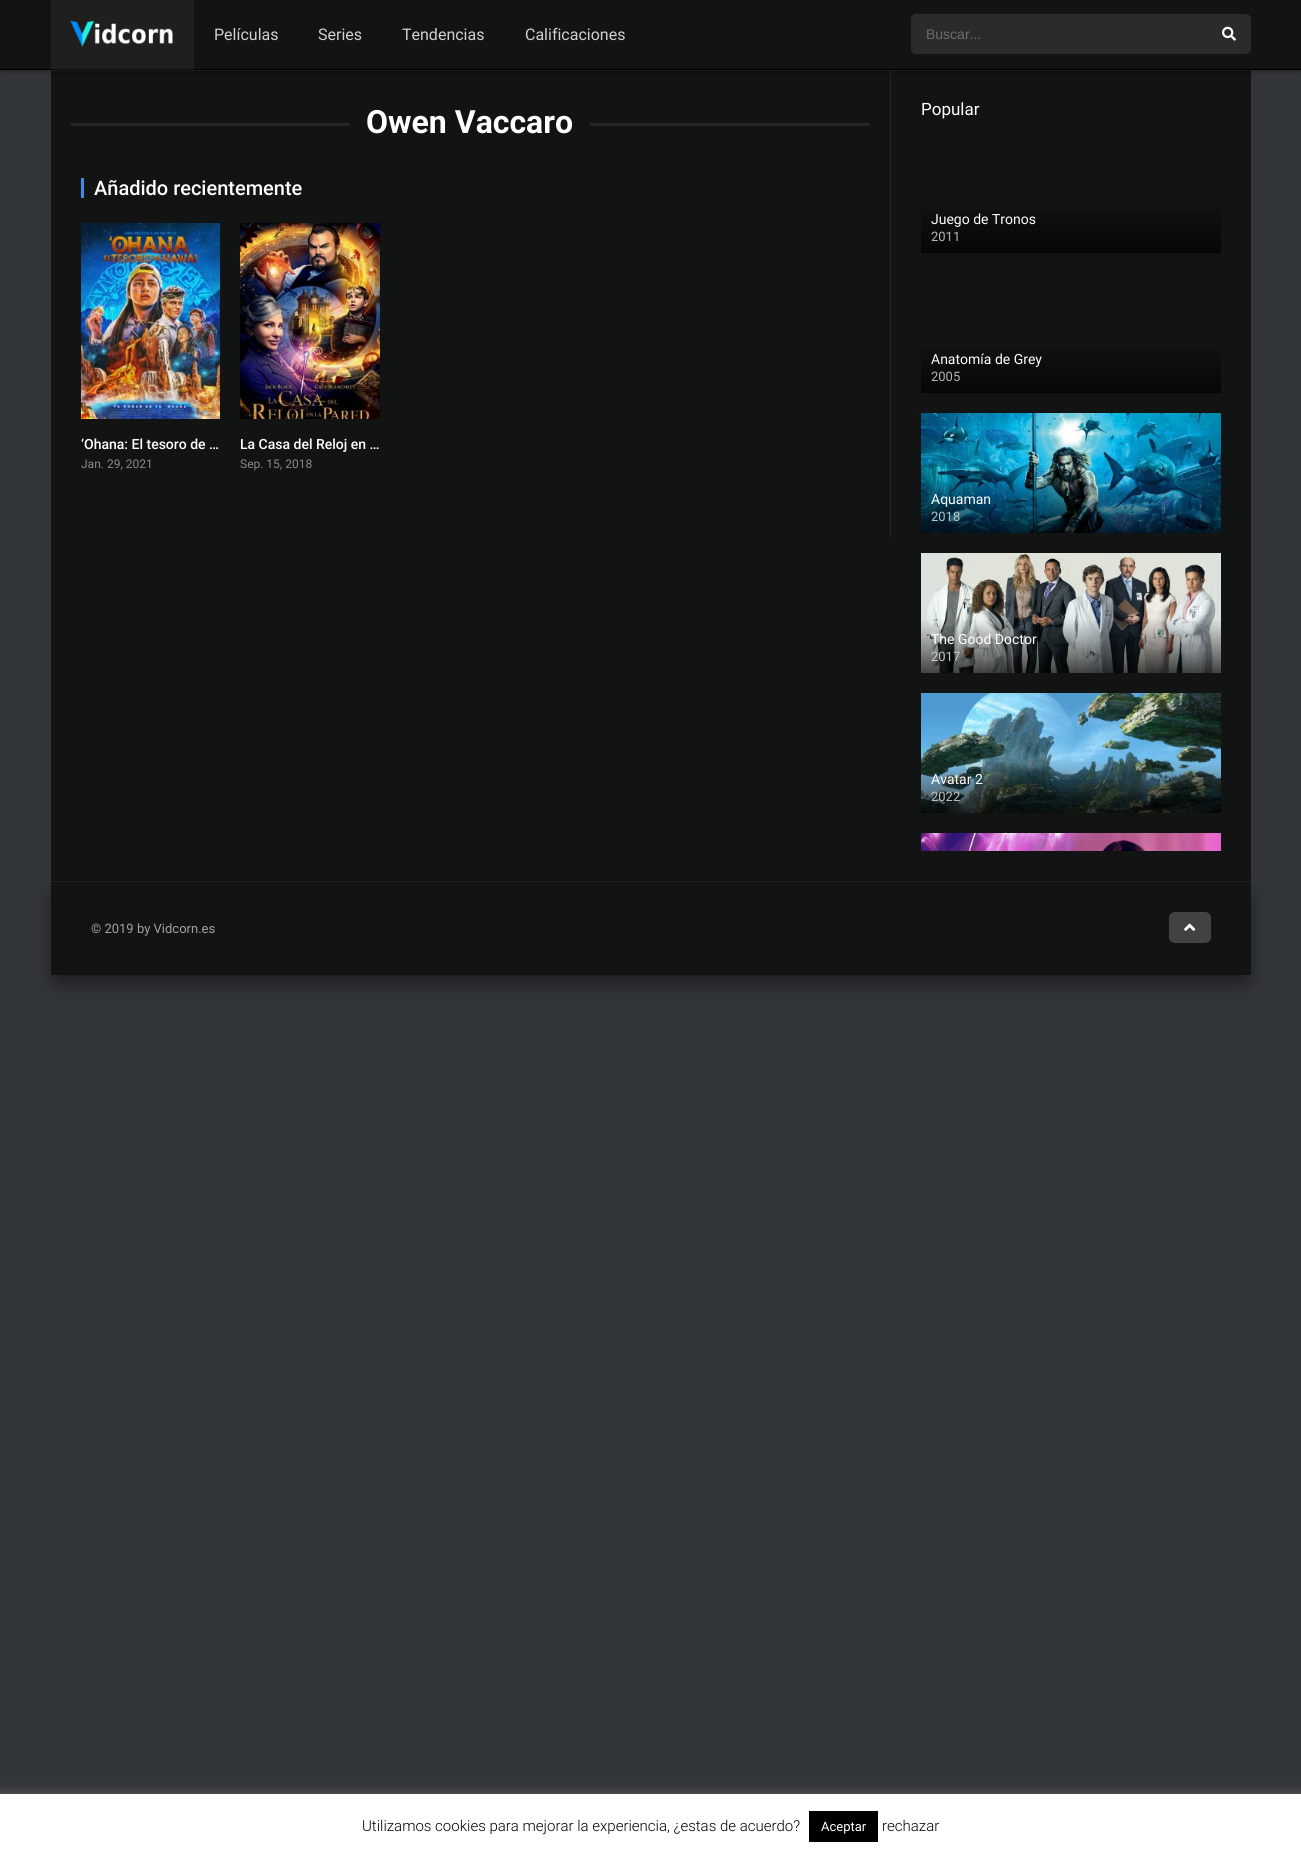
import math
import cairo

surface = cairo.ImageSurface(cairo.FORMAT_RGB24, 1301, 1854)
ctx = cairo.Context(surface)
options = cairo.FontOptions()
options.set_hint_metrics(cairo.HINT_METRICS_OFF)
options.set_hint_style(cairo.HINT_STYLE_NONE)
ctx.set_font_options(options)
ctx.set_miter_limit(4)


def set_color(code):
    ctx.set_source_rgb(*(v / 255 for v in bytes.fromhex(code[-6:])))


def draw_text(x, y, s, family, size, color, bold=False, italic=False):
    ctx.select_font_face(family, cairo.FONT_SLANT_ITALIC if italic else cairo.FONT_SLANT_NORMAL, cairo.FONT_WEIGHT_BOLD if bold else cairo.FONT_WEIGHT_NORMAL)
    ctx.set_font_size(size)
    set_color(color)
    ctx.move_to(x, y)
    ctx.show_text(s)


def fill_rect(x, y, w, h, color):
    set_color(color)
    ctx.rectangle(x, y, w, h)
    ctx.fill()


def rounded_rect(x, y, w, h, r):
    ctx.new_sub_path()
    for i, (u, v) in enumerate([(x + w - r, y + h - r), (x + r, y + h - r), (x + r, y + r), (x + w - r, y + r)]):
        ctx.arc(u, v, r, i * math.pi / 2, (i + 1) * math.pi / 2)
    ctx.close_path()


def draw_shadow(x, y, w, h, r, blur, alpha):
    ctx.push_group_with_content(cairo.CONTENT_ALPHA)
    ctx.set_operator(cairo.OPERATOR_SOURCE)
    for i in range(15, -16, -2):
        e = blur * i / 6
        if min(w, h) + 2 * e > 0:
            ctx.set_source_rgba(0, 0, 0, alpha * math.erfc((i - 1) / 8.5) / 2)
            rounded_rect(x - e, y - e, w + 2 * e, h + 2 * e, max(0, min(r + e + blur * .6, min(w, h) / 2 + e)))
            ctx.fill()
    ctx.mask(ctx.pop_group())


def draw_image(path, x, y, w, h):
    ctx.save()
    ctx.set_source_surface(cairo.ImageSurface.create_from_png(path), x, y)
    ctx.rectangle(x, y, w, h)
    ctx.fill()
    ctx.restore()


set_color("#32353a")
ctx.paint()
fill_rect(51, 71, 1200, 810, "#121313")
fill_rect(51, 70, 1200, 1, "#232424")
fill_rect(890, 71, 1, 467, "#252626")
set_color("#000000")
draw_shadow(0, 1, 1301, 70, 0, 2.5, 0.4)
fill_rect(0, 0, 1301, 69, "#131313")
fill_rect(51, 0, 143, 69, "#1f1f1f")
fill_rect(0, 69, 1301, 1, "#000000")
fill_rect(51, 69, 143, 1, "#0d0d0d")
draw_image("assets/img1.png", 70, 20, 103, 27)
draw_text(214, 40, "Películas", "Roboto", 16, "#d0d0d0")
draw_text(318, 40, "Series", "Roboto", 16, "#d0d0d0")
draw_text(402, 40, "Tendencias", "Roboto", 16, "#d0d0d0")
draw_text(525, 40, "Calificaciones", "Roboto", 16, "#d0d0d0")
set_color("#2b2b2b")
rounded_rect(911, 14, 340, 40, 5)
ctx.fill()
draw_text(926, 39, "Buscar...", "Liberation Sans", 14, "#6b6b6b")
draw_image("assets/img2.png", 1222, 26, 14, 15)
fill_rect(51, 881, 1200, 1, "#232424")
fill_rect(71, 123, 279, 3, "#252626")
draw_text(366, 133, "Owen Vaccaro", "Roboto", 32, "#ffffff", bold=True)
fill_rect(590, 123, 280, 3, "#252626")
fill_rect(81, 178, 3, 20, "#408bea")
draw_text(94, 195, "Añadido recientemente", "Roboto Medium", 20, "#ffffff")
draw_image("assets/img3.png", 81, 223, 139, 196)
draw_text(81, 449, "‘Ohana: El tesoro de …", "Roboto Medium", 14, "#ffffff")
draw_text(81, 468, "Jan. 29, 2021", "Roboto", 12, "#898989")
draw_image("assets/img4.png", 240, 223, 140, 196)
draw_text(240, 449, "La Casa del Reloj en …", "Roboto Medium", 14, "#ffffff")
draw_text(240, 468, "Sep. 15, 2018", "Roboto", 12, "#898989")
draw_text(921, 115, "Popular", "Roboto", 17, "#ffffff")
gradient = cairo.LinearGradient(1071, 199, 1071, 253)
gradient.add_color_stop_rgba(0, 0.071, 0.075, 0.075, 1)
gradient.add_color_stop_rgba(1, 0.02, 0.024, 0.024, 1)
ctx.set_source(gradient)
ctx.rectangle(921, 209, 300, 44)
ctx.fill()
draw_text(931, 224, "Juego de Tronos", "Roboto", 14, "#ffffff")
draw_text(931, 241, "2011", "Roboto", 13, "#b5b6b6")
gradient = cairo.LinearGradient(1071, 339, 1071, 393)
gradient.add_color_stop_rgba(0, 0.071, 0.075, 0.075, 1)
gradient.add_color_stop_rgba(1, 0.02, 0.024, 0.024, 1)
ctx.set_source(gradient)
ctx.rectangle(921, 349, 300, 44)
ctx.fill()
draw_text(931, 364, "Anatomía de Grey", "Roboto", 14, "#ffffff")
draw_text(931, 381, "2005", "Roboto", 13, "#b5b6b6")
draw_image("assets/img5.png", 921, 413, 300, 120)
draw_text(931, 504, "Aquaman", "Roboto", 14, "#ffffff")
draw_text(931, 521, "2018", "Roboto", 13, "#b6c2c7")
draw_image("assets/img6.png", 921, 553, 300, 120)
draw_text(931, 644, "The Good Doctor", "Roboto", 14, "#ffffff")
draw_text(931, 661, "2017", "Roboto", 13, "#c6c7c7")
draw_image("assets/img7.png", 921, 693, 300, 120)
draw_text(931, 784, "Avatar 2", "Roboto", 14, "#ffffff")
draw_text(931, 801, "2022", "Roboto", 13, "#bdc1c2")
draw_image("assets/img8.png", 921, 833, 300, 18)
set_color("#000000")
draw_shadow(58, 899, 1186, 79, 0, 12.5, 0.7)
fill_rect(51, 882, 1200, 93, "#131313")
draw_text(91, 933, "© 2019 by Vidcorn.es", "Roboto", 13, "#a1a1a1")
set_color("#424242")
rounded_rect(1169, 912, 42, 31, 6)
ctx.fill()
draw_image("assets/img9.png", 1184, 923, 12, 8)
set_color("#acabab")
draw_shadow(0, 1793, 1301, 60, 0, 5, 0.3)
fill_rect(0, 1794, 1301, 60, "#ffffff")
draw_text(362, 1831, "Utilizamos cookies para mejorar la experiencia, ¿estas de acuerdo?", "Roboto Light", 15, "#000000")
fill_rect(809, 1811, 69, 31, "#000000")
draw_text(821, 1831, "Aceptar", "Roboto", 13, "#ffffff")
draw_text(882, 1831, "rechazar", "Roboto Light", 15, "#000000")
surface.write_to_png("output.png")
